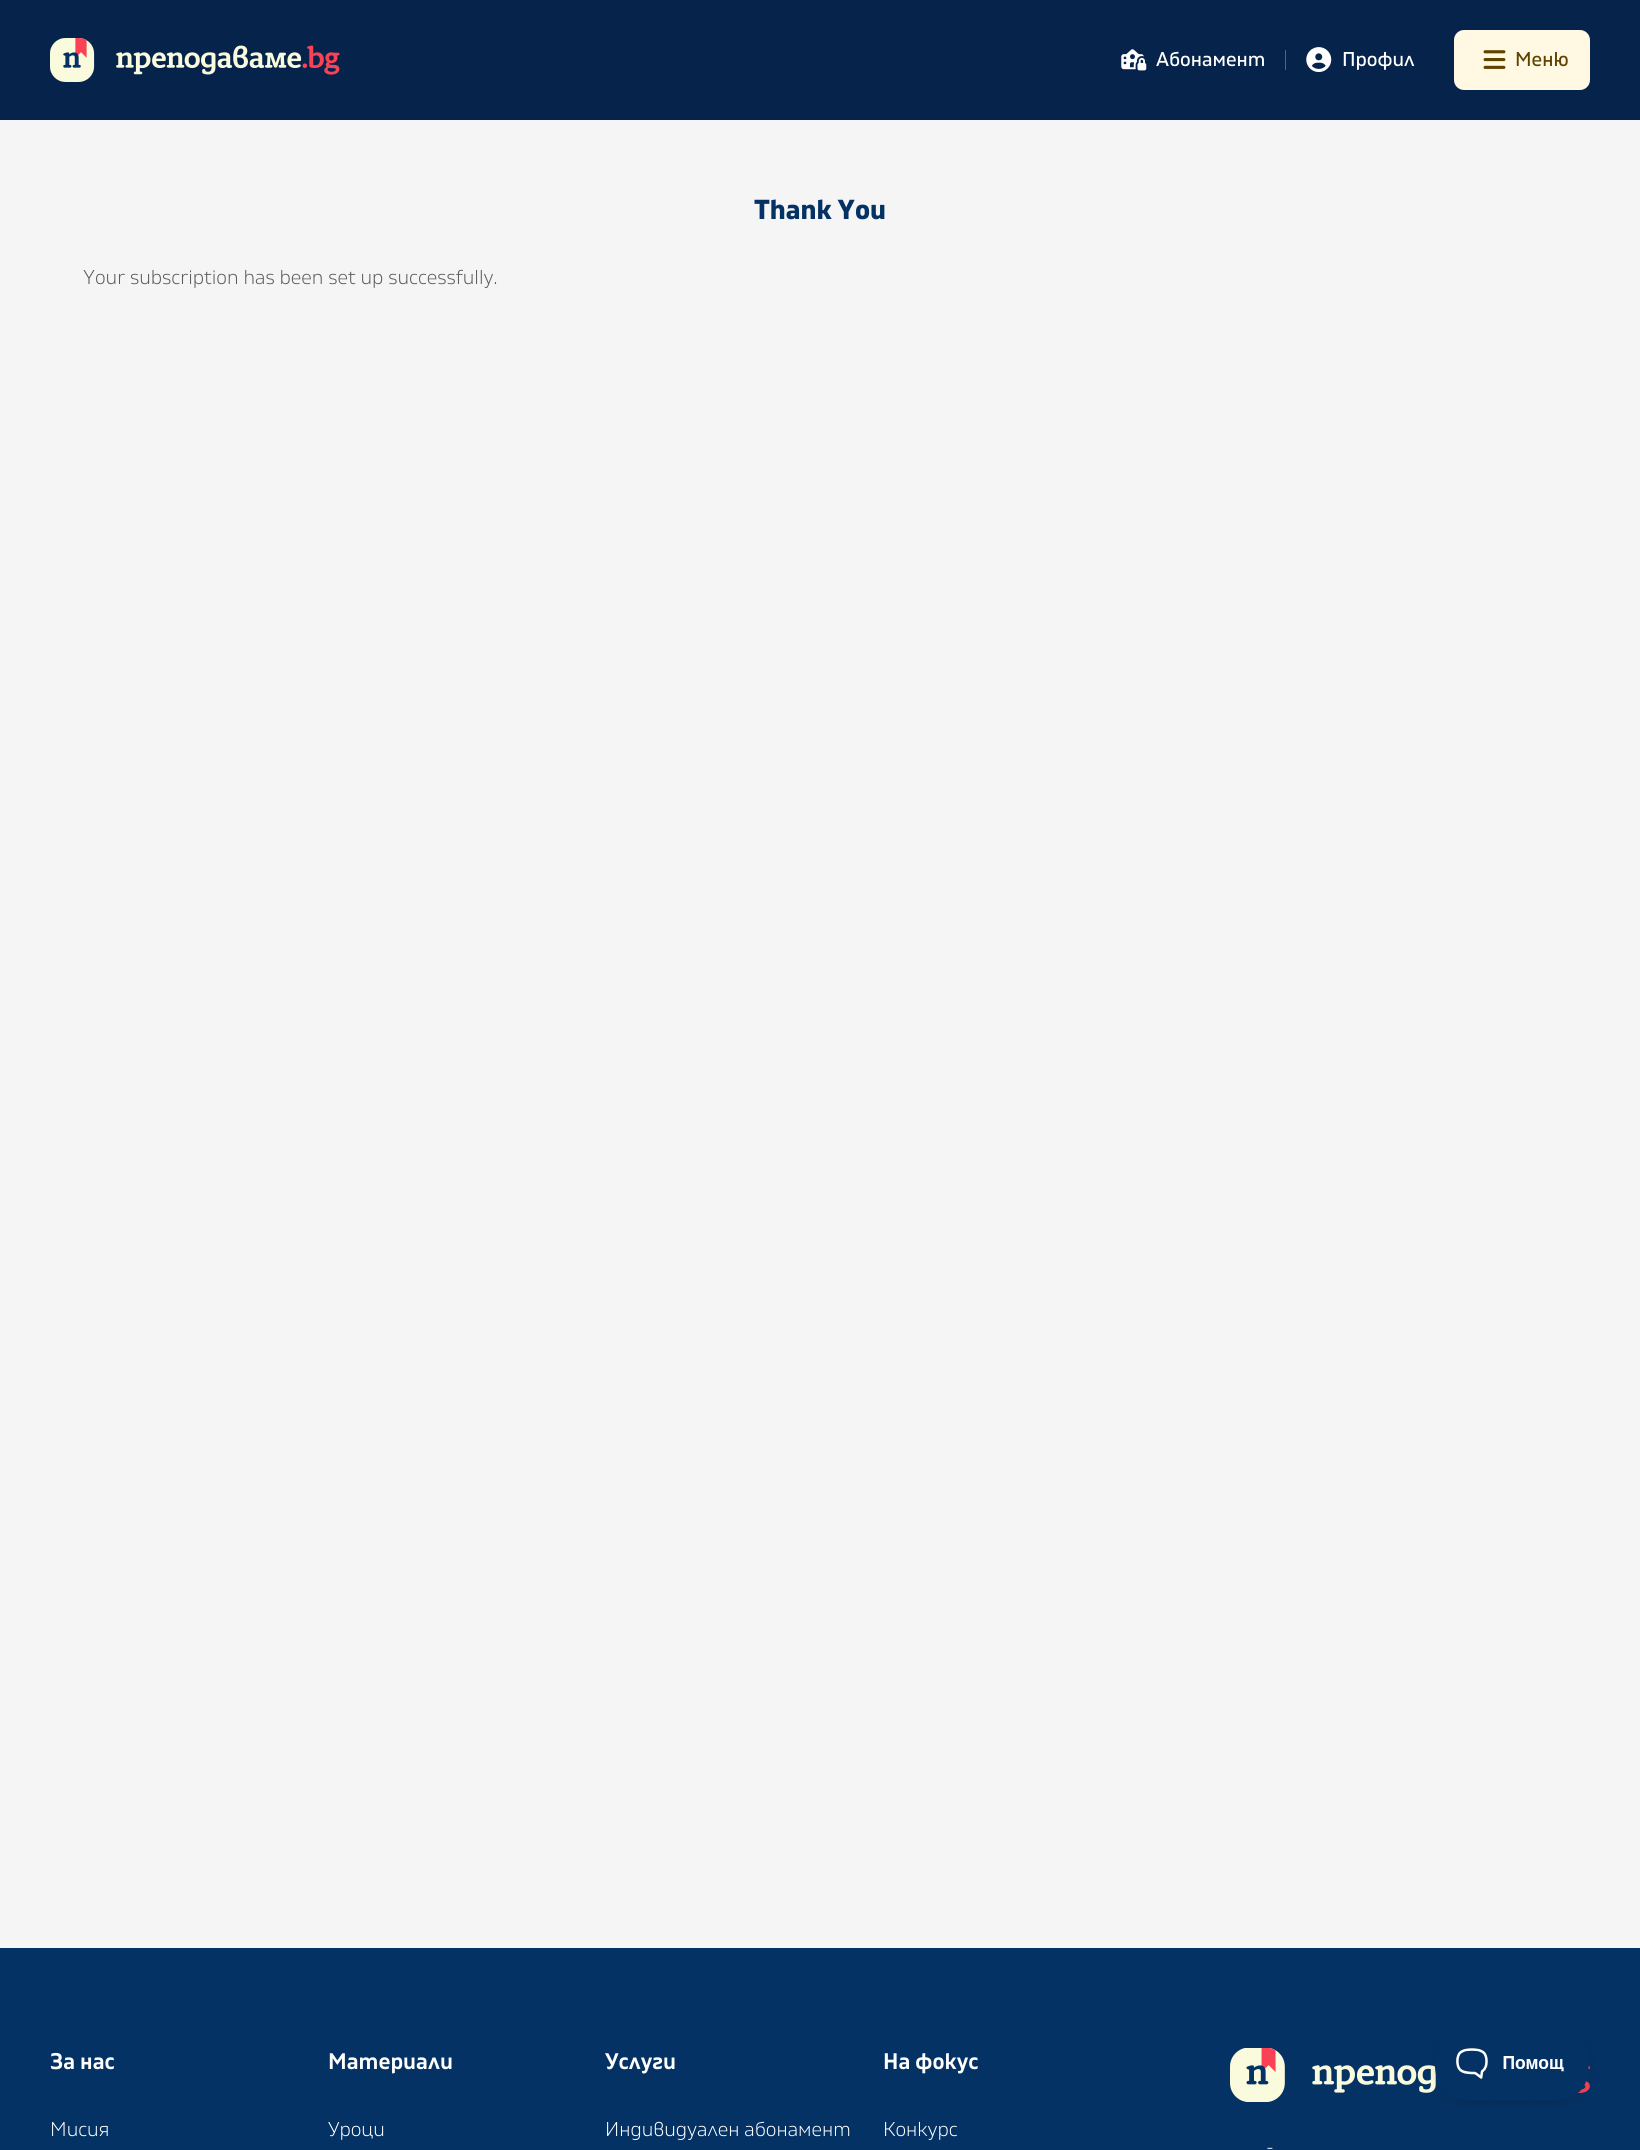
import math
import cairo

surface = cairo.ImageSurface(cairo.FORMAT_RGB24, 1640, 2150)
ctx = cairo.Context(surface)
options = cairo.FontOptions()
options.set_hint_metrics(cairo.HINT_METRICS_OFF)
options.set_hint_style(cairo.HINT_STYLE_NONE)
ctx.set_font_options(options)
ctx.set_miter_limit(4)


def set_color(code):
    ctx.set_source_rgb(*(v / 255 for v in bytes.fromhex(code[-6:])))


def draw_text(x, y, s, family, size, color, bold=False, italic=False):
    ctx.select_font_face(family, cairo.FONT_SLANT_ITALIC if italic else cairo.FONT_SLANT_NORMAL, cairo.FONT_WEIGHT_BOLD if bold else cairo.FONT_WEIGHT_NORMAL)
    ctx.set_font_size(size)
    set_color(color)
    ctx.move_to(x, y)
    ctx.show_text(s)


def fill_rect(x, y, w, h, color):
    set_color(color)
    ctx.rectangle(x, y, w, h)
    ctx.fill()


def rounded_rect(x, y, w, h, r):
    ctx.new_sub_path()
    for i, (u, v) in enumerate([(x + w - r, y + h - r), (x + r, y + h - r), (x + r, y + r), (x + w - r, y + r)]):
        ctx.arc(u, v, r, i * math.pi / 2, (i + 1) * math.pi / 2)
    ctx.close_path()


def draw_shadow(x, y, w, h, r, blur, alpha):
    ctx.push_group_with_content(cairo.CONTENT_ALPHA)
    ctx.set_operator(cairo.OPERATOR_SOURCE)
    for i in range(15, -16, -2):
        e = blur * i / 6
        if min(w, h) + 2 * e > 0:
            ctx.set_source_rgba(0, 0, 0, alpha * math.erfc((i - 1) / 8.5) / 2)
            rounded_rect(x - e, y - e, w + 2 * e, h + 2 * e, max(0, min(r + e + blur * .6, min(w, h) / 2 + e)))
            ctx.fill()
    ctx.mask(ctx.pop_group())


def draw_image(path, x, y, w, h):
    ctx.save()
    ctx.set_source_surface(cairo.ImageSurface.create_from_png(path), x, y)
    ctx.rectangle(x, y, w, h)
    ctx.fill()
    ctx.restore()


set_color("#f5f5f5")
ctx.paint()
fill_rect(0, 0, 1640, 120, "#05234b")
draw_image("assets/img1.png", 50, 38, 290, 44)
draw_image("assets/img2.png", 1121, 49, 26, 22)
draw_text(1156, 66, "Абонамент", "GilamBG", 20, "#ffffff")
fill_rect(1285, 50, 1, 20, "#506581")
draw_image("assets/img3.png", 1306, 47, 26, 26)
draw_text(1342, 66, "Профил", "GilamBG", 20, "#ffffff")
set_color("#fff8e3")
rounded_rect(1454, 30, 136, 60, 10)
ctx.fill()
draw_image("assets/img4.png", 1483, 50, 23, 19)
draw_text(1515, 66, "Меню", "GilamBG", 20, "#614300")
draw_text(754, 219, "Thank You", "GilamBG", 27.5, "#053264", bold=True)
draw_text(83, 284, "Your subscription has been set up successfully.", "GilamBG Light", 20, "#5c5c5c")
fill_rect(0, 1948, 1640, 202, "#053264")
draw_text(50, 2069, "За нас", "GilamBG SemiBold", 22.5, "#ffffff")
draw_text(50, 2136, "Мисия", "GilamBG Light", 20, "#ffffff")
draw_text(328, 2069, "Материали", "GilamBG SemiBold", 22.5, "#ffffff")
draw_text(328, 2136, "Уроци", "GilamBG Light", 20, "#ffffff")
draw_text(605, 2069, "Услуги", "GilamBG SemiBold", 22.5, "#ffffff")
draw_text(605, 2136, "Индивидуален абонамент", "GilamBG Light", 20, "#ffffff")
draw_text(883, 2069, "На фокус", "GilamBG SemiBold", 22.5, "#ffffff")
draw_text(883, 2136, "Конкурс", "GilamBG Light", 20, "#ffffff")
draw_image("assets/img5.png", 1230, 2048, 360, 54)
draw_text(1266, 2154, "-", "GilamBG Light", 20, "#ffffff")
ctx.save()
ctx.set_fill_rule(cairo.FILL_RULE_EVEN_ODD)
ctx.new_path()
ctx.move_to(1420, 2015)
ctx.line_to(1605, 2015)
ctx.line_to(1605, 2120)
ctx.line_to(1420, 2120)
ctx.close_path()
ctx.move_to(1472.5, 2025)
ctx.line_to(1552.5, 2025)
ctx.curve_to(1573, 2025, 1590, 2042, 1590, 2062.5)
ctx.curve_to(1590, 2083, 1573, 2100, 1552.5, 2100)
ctx.line_to(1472.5, 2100)
ctx.curve_to(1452, 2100, 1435, 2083, 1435, 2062.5)
ctx.curve_to(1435, 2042, 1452, 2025, 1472.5, 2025)
ctx.close_path()
ctx.clip()
set_color("#000000")
draw_shadow(1435, 2030, 155, 75, 37.5, 4.5, 0.1)
ctx.restore()
draw_image("assets/img6.png", 1435, 2048, 154, 51)
surface.write_to_png("output.png")
